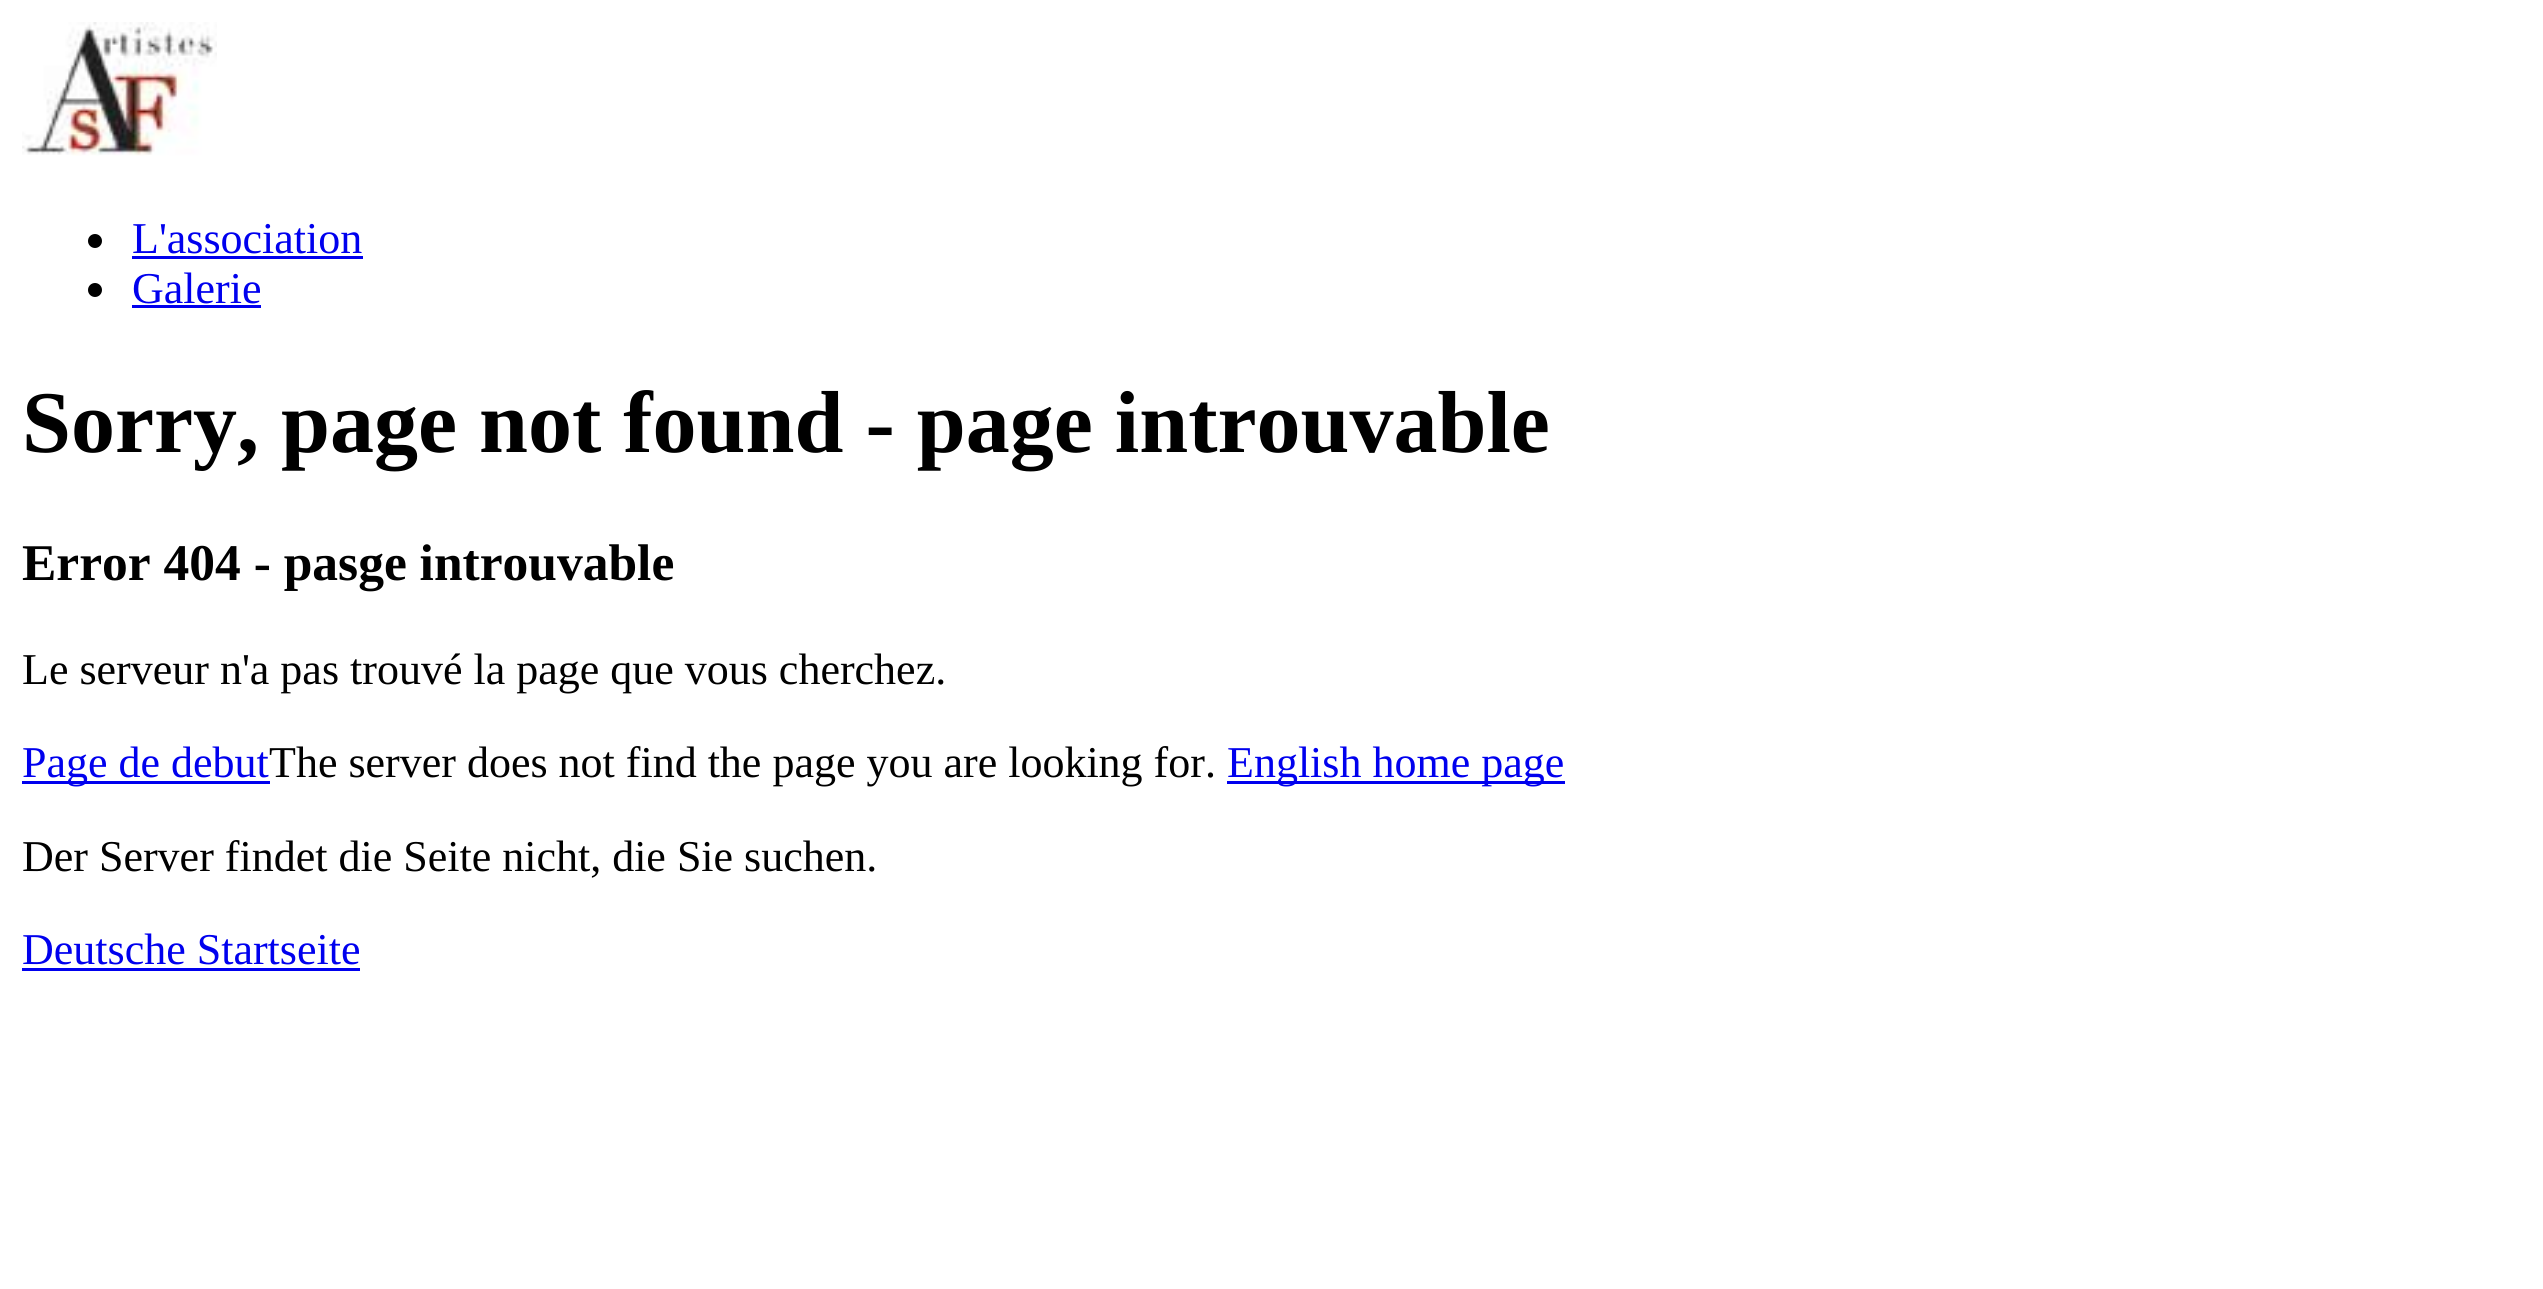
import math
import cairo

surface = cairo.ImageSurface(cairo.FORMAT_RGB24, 2543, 1289)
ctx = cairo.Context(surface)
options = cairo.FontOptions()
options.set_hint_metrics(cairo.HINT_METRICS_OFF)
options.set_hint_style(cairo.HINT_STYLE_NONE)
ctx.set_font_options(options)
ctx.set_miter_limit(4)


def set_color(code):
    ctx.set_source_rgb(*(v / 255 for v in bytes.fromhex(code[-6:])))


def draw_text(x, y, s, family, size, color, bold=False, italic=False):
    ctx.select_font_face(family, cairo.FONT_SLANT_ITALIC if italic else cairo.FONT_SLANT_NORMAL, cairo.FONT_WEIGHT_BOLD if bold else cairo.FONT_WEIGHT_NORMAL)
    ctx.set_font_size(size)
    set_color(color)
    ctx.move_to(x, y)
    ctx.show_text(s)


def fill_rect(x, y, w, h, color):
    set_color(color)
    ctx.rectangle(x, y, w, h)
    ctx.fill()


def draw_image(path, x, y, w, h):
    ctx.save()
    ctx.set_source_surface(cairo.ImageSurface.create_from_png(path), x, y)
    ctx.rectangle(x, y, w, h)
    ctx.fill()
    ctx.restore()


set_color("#ffffff")
ctx.paint()
draw_image("assets/img1.png", 22, 22, 195, 134)
set_color("#000000")
ctx.arc(95, 241, 7, 0, 2 * math.pi)
ctx.fill()
draw_text(132, 253, "L'association", "Liberation Serif", 44, "#0000ee")
fill_rect(132, 256, 231, 3, "#0000ee")
set_color("#000000")
ctx.new_path()
ctx.arc(95, 290, 7, 0, 2 * math.pi)
ctx.fill()
draw_text(132, 303, "Galerie", "Liberation Serif", 44, "#0000ee")
fill_rect(132, 305, 129, 3, "#0000ee")
draw_text(22, 452, "Sorry, page not found - page introuvable", "Liberation Serif", 88, "#000000", bold=True)
draw_text(22, 580, "Error 404 - pasge introuvable", "Liberation Serif", 51.5, "#000000", bold=True)
draw_text(22, 684, "Le serveur n'a pas trouvé la page que vous cherchez.", "Liberation Serif", 44, "#000000")
fill_rect(22, 781, 248, 3, "#0000ee")
draw_text(22, 777, "Page de debut", "Liberation Serif", 44, "#0000ee")
draw_text(269, 777, "The server does not find the page you are looking for.", "Liberation Serif", 44, "#000000")
fill_rect(1227, 781, 338, 3, "#0000ee")
draw_text(1227, 777, "English home page", "Liberation Serif", 44, "#0000ee")
draw_text(22, 871, "Der Server findet die Seite nicht, die Sie suchen.", "Liberation Serif", 44, "#000000")
draw_text(22, 964, "Deutsche Startseite", "Liberation Serif", 44, "#0000ee")
fill_rect(22, 968, 338, 3, "#0000ee")
surface.write_to_png("output.png")
